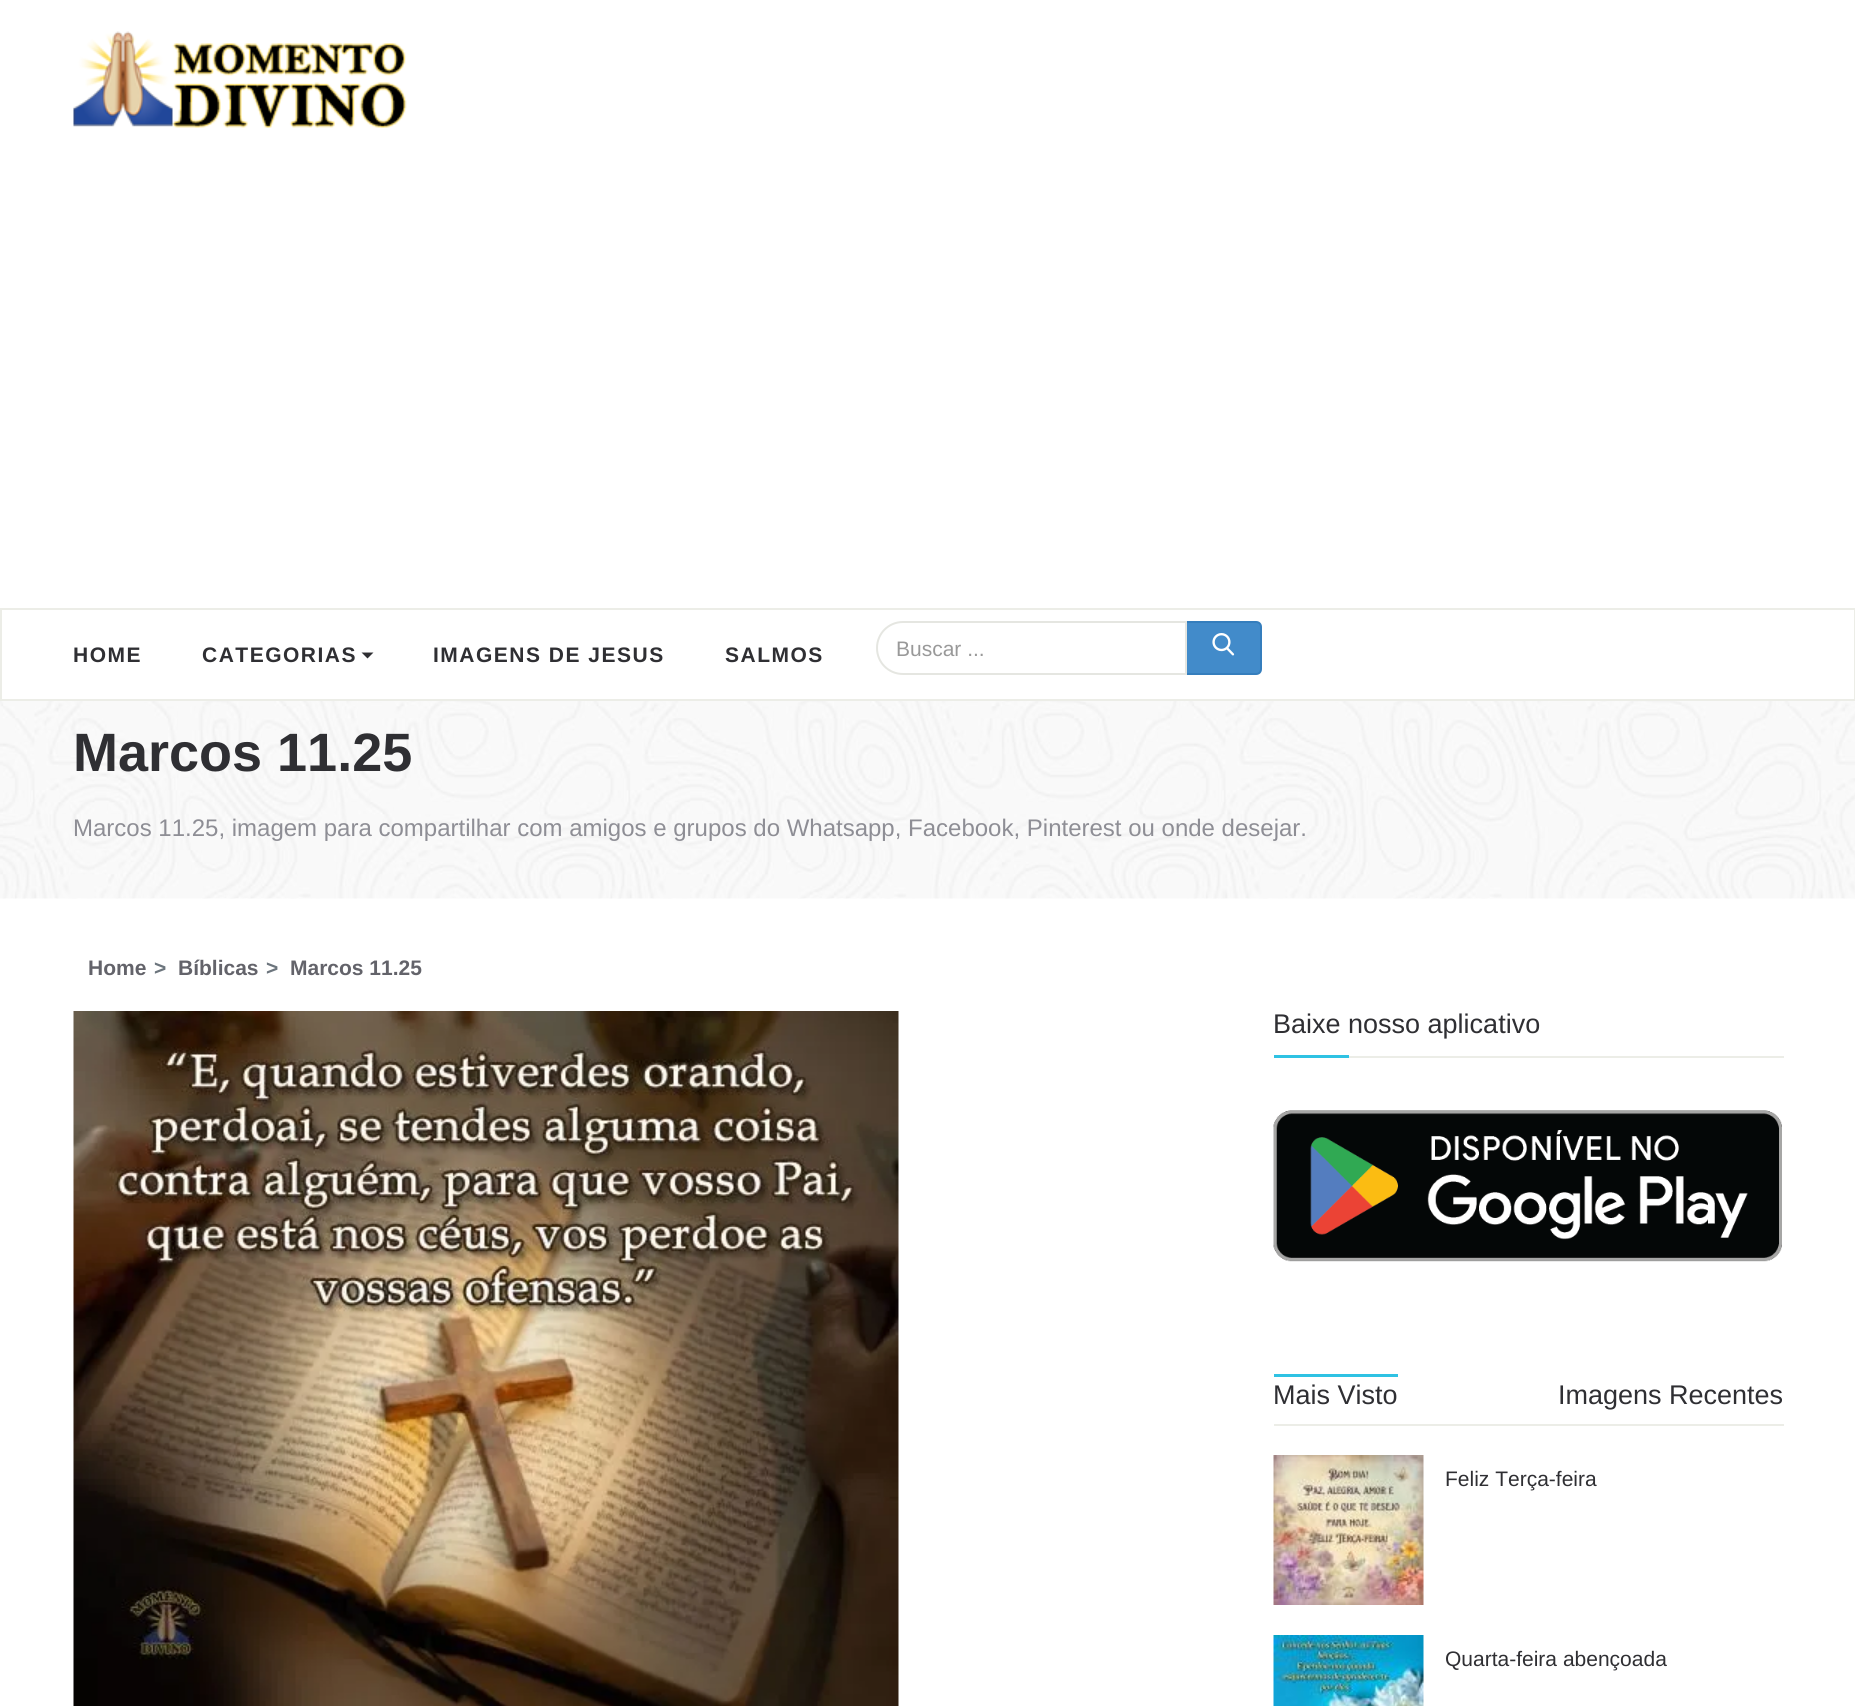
import math
import cairo

surface = cairo.ImageSurface(cairo.FORMAT_RGB24, 1855, 1706)
ctx = cairo.Context(surface)
options = cairo.FontOptions()
options.set_hint_metrics(cairo.HINT_METRICS_OFF)
options.set_hint_style(cairo.HINT_STYLE_NONE)
ctx.set_font_options(options)
ctx.set_miter_limit(4)


def set_color(code):
    ctx.set_source_rgb(*(v / 255 for v in bytes.fromhex(code[-6:])))


def draw_text(x, y, s, family, size, color, bold=False, italic=False):
    ctx.select_font_face(family, cairo.FONT_SLANT_ITALIC if italic else cairo.FONT_SLANT_NORMAL, cairo.FONT_WEIGHT_BOLD if bold else cairo.FONT_WEIGHT_NORMAL)
    ctx.set_font_size(size)
    set_color(color)
    ctx.move_to(x, y)
    ctx.show_text(s)


def draw_spaced(x, y, s, letter, word):
    ctx.move_to(x, y)
    for ch in s:
        ctx.show_text(ch)
        ctx.rel_move_to(letter + word * (ch == ' '), 0)


def fill_rect(x, y, w, h, color):
    set_color(color)
    ctx.rectangle(x, y, w, h)
    ctx.fill()


def draw_image(path, x, y, w, h):
    ctx.save()
    ctx.set_source_surface(cairo.ImageSurface.create_from_png(path), x, y)
    ctx.rectangle(x, y, w, h)
    ctx.fill()
    ctx.restore()


set_color("#ffffff")
ctx.paint()
draw_image("assets/img1.png", 73, 31, 334, 97)
ctx.rectangle(1, 609, 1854, 91)
set_color("#ecede7")
ctx.stroke()
ctx.select_font_face("Liberation Sans", cairo.FONT_SLANT_NORMAL, cairo.FONT_WEIGHT_BOLD)
ctx.set_font_size(21)
set_color("#2f2f33")
draw_spaced(73, 662, "HOME", 1.5, 0)
draw_spaced(202, 662, "CATEGORIAS", 1.5, 0)
ctx.new_path()
ctx.move_to(361.5, 652.5)
ctx.line_to(373.5, 652.5)
ctx.line_to(367.5, 658.5)
ctx.close_path()
ctx.fill()
draw_spaced(433, 662, "IMAGENS DE JESUS", 1.5, 0)
draw_spaced(725, 662, "SALMOS", 1.5, 0)
set_color("#428bca")
ctx.new_path()
ctx.move_to(1186, 622)
ctx.line_to(1256, 622)
ctx.curve_to(1259, 622, 1261, 624, 1261, 627)
ctx.line_to(1261, 669)
ctx.curve_to(1261, 672, 1259, 674, 1256, 674)
ctx.line_to(1186, 674)
ctx.close_path()
ctx.fill_preserve()
set_color("#357ebd")
ctx.stroke()
set_color("#ffffff")
ctx.new_path()
ctx.move_to(903, 622)
ctx.line_to(1186, 622)
ctx.line_to(1186, 674)
ctx.line_to(903, 674)
ctx.curve_to(888.5, 674, 877, 662.5, 877, 648)
ctx.curve_to(877, 633.5, 888.5, 622, 903, 622)
ctx.close_path()
ctx.fill_preserve()
set_color("#e5e6e1")
ctx.stroke()
draw_text(896, 656, "Buscar ...", "Liberation Sans", 21, "#999999")
draw_image("assets/img2.png", 1212, 633, 23, 23)
draw_image("assets/img3.png", 0, 701, 1855, 198)
draw_text(73, 771, "Marcos 11.25", "Liberation Sans", 54, "#2f2f33", bold=True)
draw_text(73, 836, "Marcos 11.25, imagem para compartilhar com amigos e grupos do Whatsapp, Facebook, Pinterest ou onde desejar.", "Liberation Sans", 24, "#8e8e95")
draw_text(88, 975, "Home", "Liberation Sans", 21, "#63636a", bold=True)
draw_text(154, 975, ">", "Liberation Sans", 21, "#6c757d", bold=True)
draw_text(178, 975, "Bíblicas", "Liberation Sans", 21, "#63636a", bold=True)
draw_text(266, 975, ">", "Liberation Sans", 21, "#6c757d", bold=True)
draw_text(290, 975, "Marcos 11.25", "Liberation Sans", 21, "#63636a", bold=True)
draw_image("assets/img4.png", 73, 1011, 826, 695)
fill_rect(1349, 1056, 435, 2, "#ecede7")
draw_text(1273, 1033, "Baixe nosso aplicativo", "Liberation Sans", 27, "#2f2f33")
fill_rect(1274, 1055, 75, 3, "#2fc2e3")
draw_image("assets/img5.png", 1273, 1110, 509, 152)
fill_rect(1274, 1424, 510, 2, "#ecede7")
fill_rect(1274, 1374, 124, 3, "#2fc2e3")
draw_text(1273, 1404, "Mais Visto", "Liberation Sans", 27, "#2f2f33")
draw_text(1558, 1404, "Imagens Recentes", "Liberation Sans", 27, "#2f2f33")
draw_image("assets/img6.png", 1273, 1455, 151, 150)
draw_text(1445, 1486, "Feliz Terça-feira", "Liberation Sans", 21, "#2f2f33")
draw_image("assets/img7.png", 1273, 1635, 151, 71)
draw_text(1445, 1666, "Quarta-feira abençoada", "Liberation Sans", 21, "#2f2f33")
surface.write_to_png("output.png")
